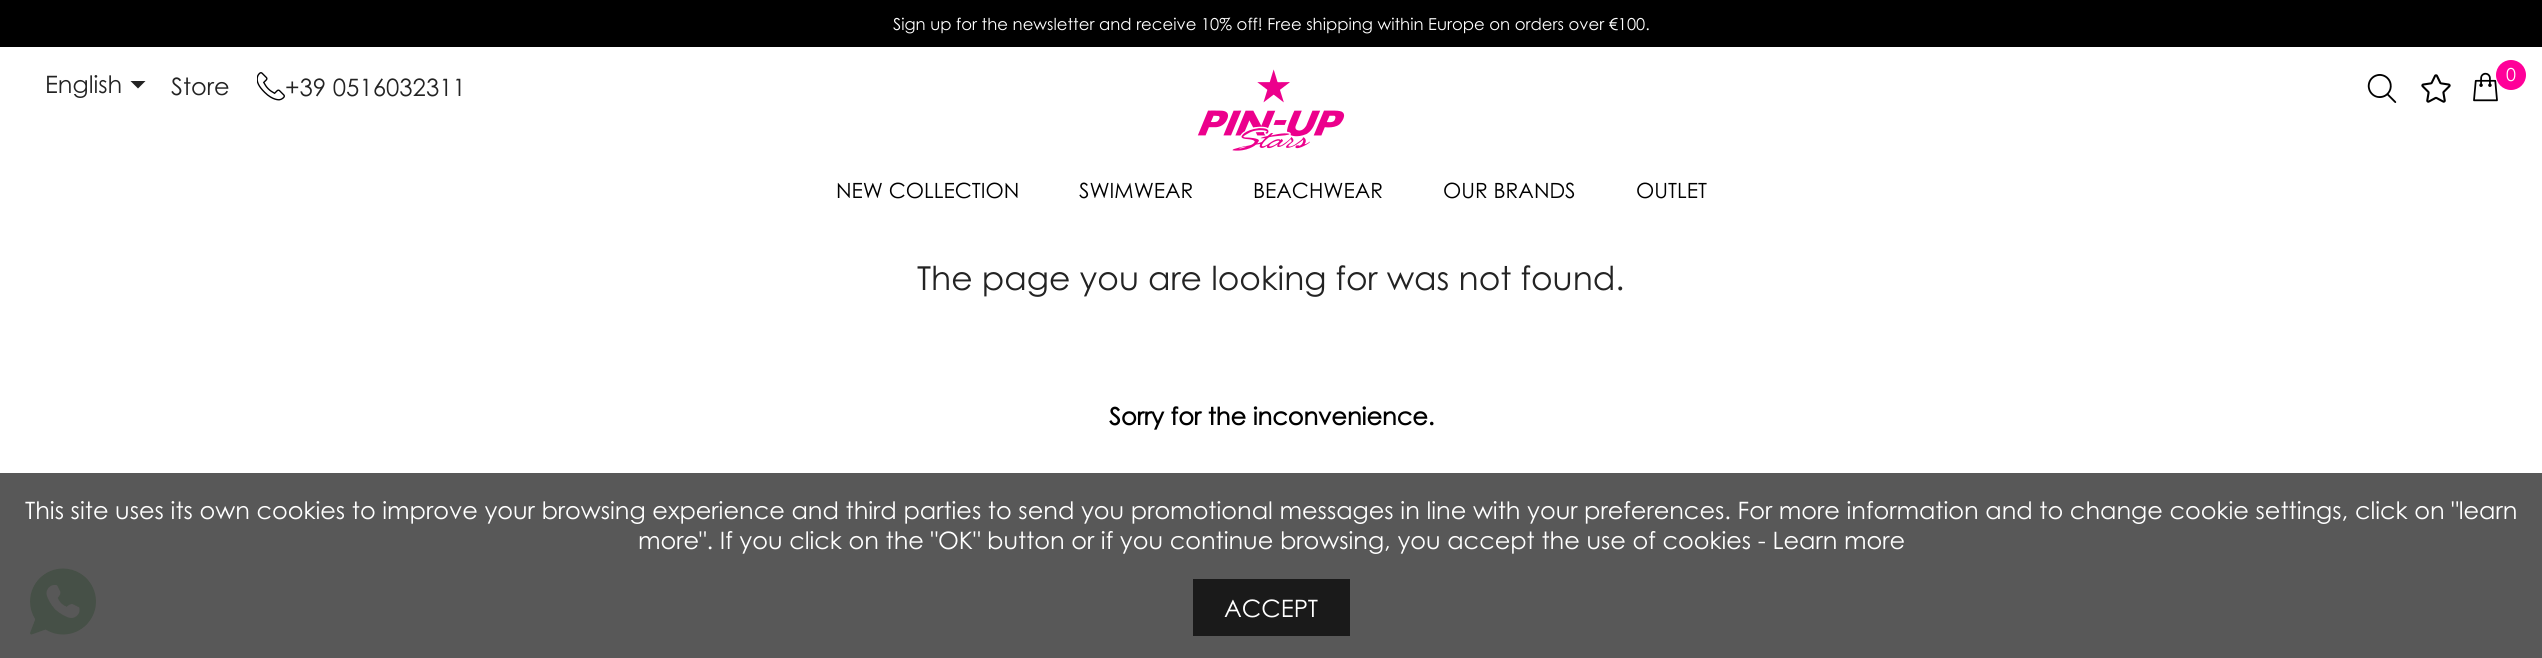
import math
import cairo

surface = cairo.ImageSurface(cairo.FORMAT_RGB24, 2542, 658)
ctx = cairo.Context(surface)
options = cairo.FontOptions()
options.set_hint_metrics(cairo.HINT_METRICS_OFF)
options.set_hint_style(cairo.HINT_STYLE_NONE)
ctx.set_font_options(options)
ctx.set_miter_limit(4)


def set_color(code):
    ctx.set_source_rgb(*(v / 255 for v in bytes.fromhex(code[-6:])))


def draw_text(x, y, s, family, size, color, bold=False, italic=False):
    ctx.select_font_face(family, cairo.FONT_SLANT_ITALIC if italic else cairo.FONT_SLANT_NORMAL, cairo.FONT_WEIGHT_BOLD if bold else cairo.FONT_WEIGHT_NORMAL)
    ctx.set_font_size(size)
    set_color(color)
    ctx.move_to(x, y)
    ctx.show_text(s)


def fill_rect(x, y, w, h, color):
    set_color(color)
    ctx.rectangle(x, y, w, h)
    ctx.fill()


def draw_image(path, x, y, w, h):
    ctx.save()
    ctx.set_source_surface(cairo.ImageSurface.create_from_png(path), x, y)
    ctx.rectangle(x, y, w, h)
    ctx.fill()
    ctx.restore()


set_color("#ffffff")
ctx.paint()
fill_rect(0, 0, 2542, 47, "#000000")
draw_text(893, 30, "Sign up for the newsletter and receive 10% off! Free shipping within Europe on orders over €100.", "Century Gothic", 16.5, "#ffffff")
draw_text(45, 93, "English", "Century Gothic", 24, "#232323")
ctx.new_path()
ctx.move_to(130.5, 81)
ctx.line_to(145.5, 81)
ctx.line_to(138, 88.5)
ctx.close_path()
ctx.fill()
draw_text(171, 95, "Store", "Century Gothic", 24, "#232323")
draw_image("assets/img1.png", 257, 72, 28, 29)
draw_text(285, 96, "+39 0516032311", "Century Gothic", 24, "#232323")
draw_image("assets/img2.png", 1197, 69, 148, 82)
draw_image("assets/img3.png", 2367, 74, 30, 29)
draw_image("assets/img4.png", 2421, 74, 30, 29)
draw_image("assets/img5.png", 2473, 72, 25, 30)
set_color("#ff0099")
ctx.arc(2511, 75, 15, 0, 2 * math.pi)
ctx.fill()
draw_text(2506, 81, "0", "Century Gothic", 18, "#ffffff")
draw_text(836, 198, "NEW COLLECTION", "Century Gothic", 21, "#000000")
draw_text(1079, 198, "SWIMWEAR", "Century Gothic", 21, "#000000")
draw_text(1253, 198, "BEACHWEAR", "Century Gothic", 21, "#000000")
draw_text(1443, 198, "OUR BRANDS", "Century Gothic", 21, "#000000")
draw_text(1636, 198, "OUTLET", "Century Gothic", 21, "#000000")
draw_text(917, 290, "The page you are looking for was not found.", "Century Gothic", 33, "#232323")
draw_text(1109, 425, "Sorry for the inconvenience.", "Century Gothic", 24, "#000000", bold=True)
draw_image("assets/img6.png", 30, 568, 66, 67)
ctx.set_source_rgba(0.275, 0.275, 0.275, 0.9)
ctx.rectangle(0, 473, 2542, 185)
ctx.fill()
draw_text(25, 519, "This site uses its own cookies to improve your browsing experience and third parties to send you promotional messages in line with your preferences. For more information and to change cookie settings, click on \"learn", "Century Gothic", 24, "#ffffff")
draw_text(638, 549, "more\". If you click on the \"OK\" button or if you continue browsing, you accept the use of cookies - Learn more", "Century Gothic", 24, "#ffffff")
fill_rect(1193, 579, 157, 57, "#1a1a1a")
draw_text(1224, 617, "ACCEPT", "Century Gothic", 24, "#ffffff")
surface.write_to_png("output.png")
